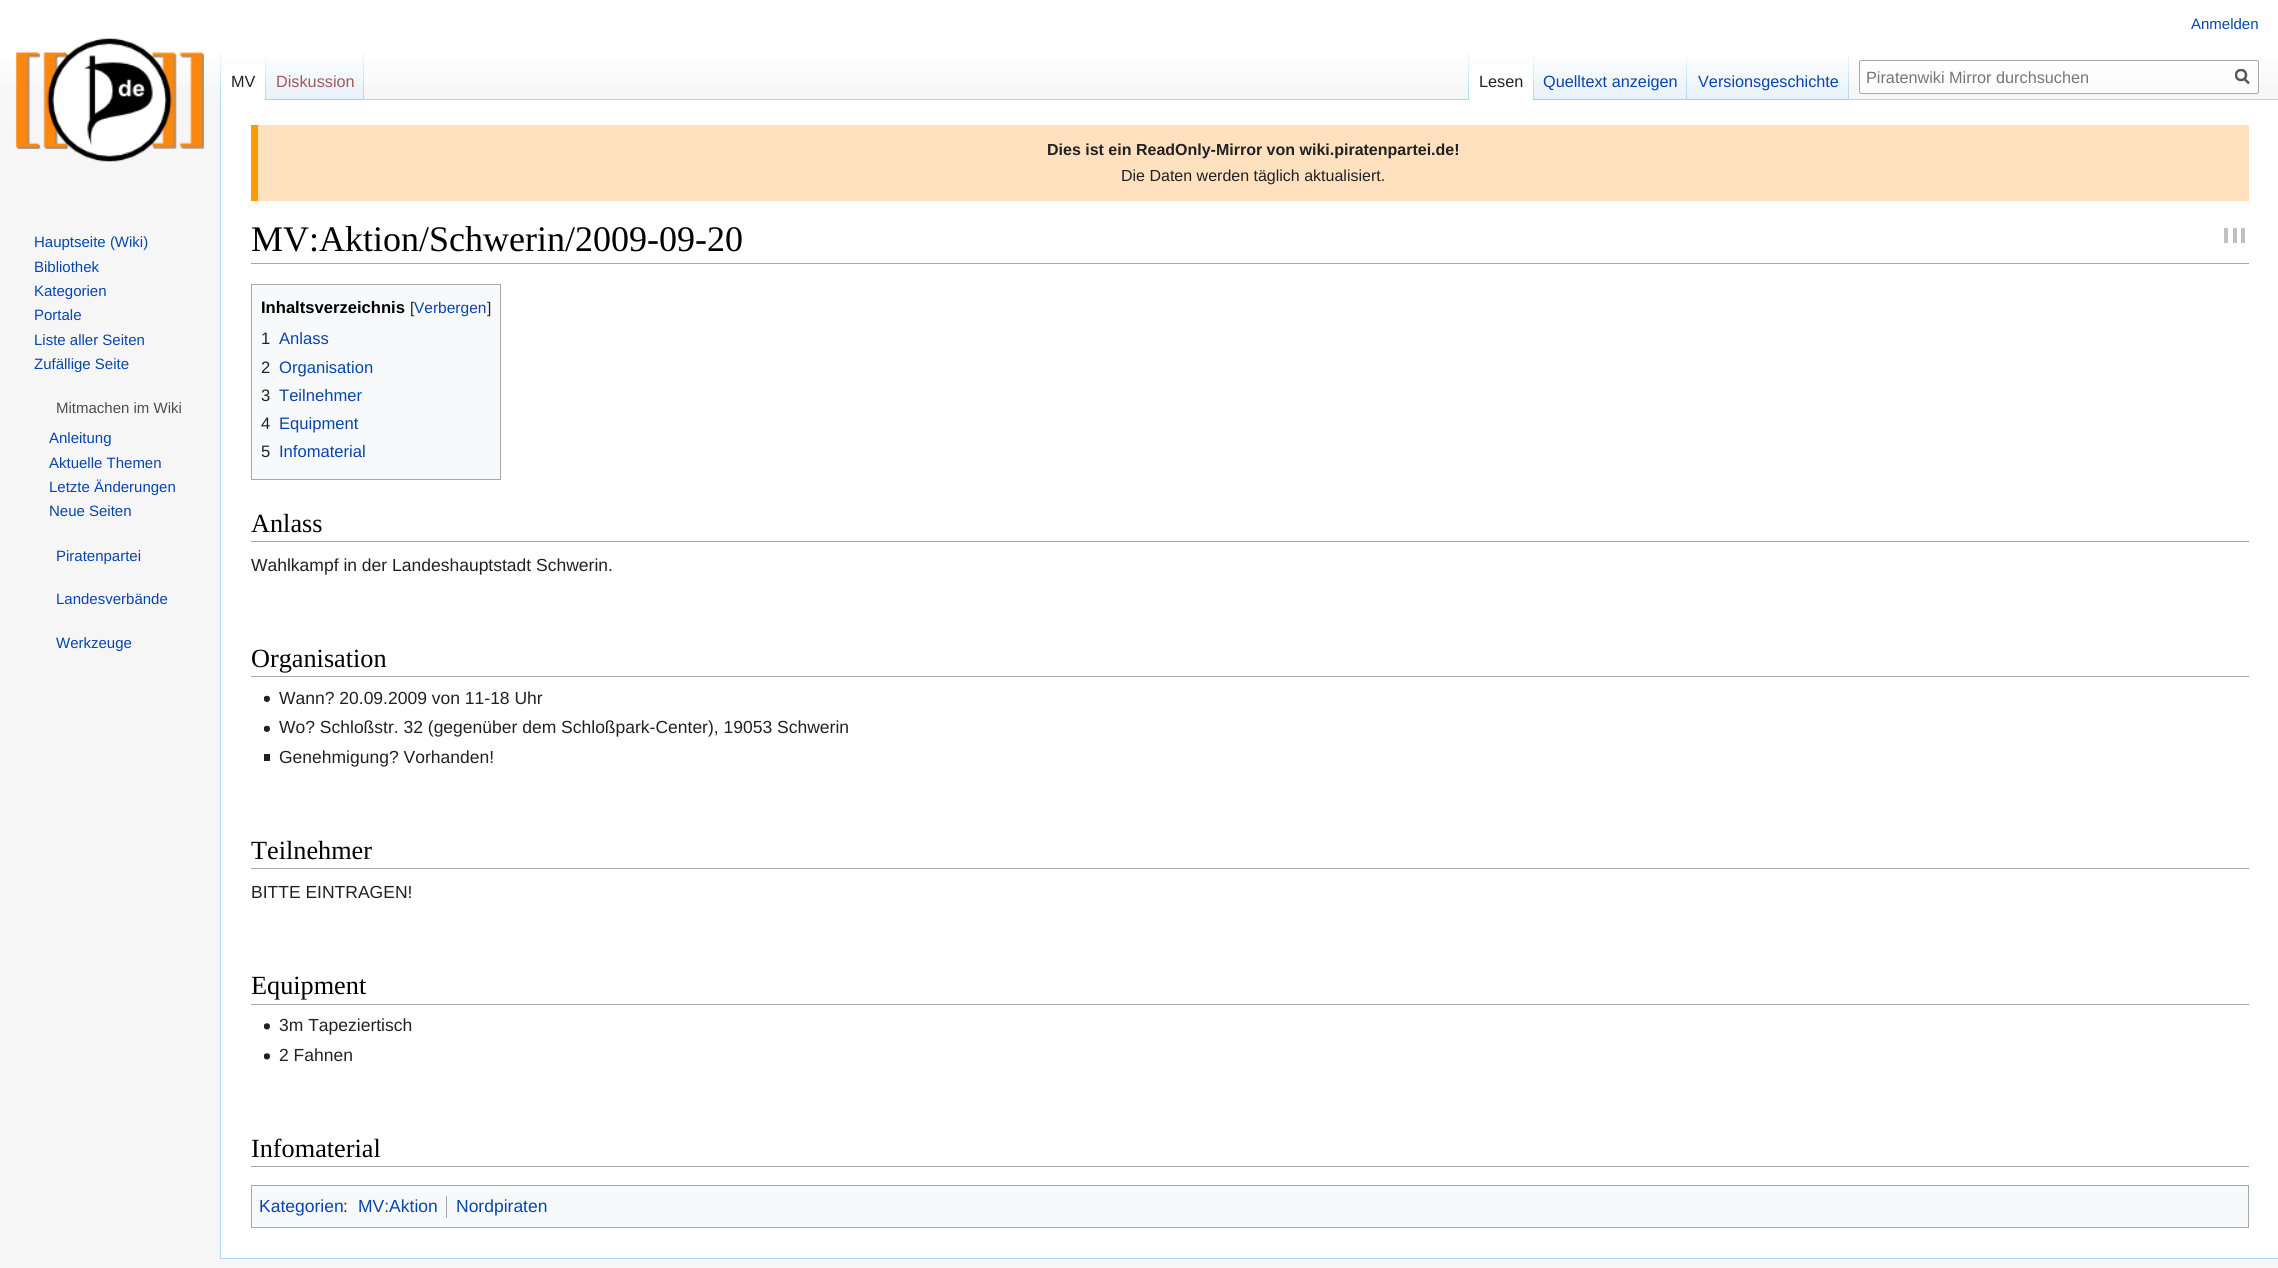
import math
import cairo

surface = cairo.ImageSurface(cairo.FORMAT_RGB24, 2278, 1268)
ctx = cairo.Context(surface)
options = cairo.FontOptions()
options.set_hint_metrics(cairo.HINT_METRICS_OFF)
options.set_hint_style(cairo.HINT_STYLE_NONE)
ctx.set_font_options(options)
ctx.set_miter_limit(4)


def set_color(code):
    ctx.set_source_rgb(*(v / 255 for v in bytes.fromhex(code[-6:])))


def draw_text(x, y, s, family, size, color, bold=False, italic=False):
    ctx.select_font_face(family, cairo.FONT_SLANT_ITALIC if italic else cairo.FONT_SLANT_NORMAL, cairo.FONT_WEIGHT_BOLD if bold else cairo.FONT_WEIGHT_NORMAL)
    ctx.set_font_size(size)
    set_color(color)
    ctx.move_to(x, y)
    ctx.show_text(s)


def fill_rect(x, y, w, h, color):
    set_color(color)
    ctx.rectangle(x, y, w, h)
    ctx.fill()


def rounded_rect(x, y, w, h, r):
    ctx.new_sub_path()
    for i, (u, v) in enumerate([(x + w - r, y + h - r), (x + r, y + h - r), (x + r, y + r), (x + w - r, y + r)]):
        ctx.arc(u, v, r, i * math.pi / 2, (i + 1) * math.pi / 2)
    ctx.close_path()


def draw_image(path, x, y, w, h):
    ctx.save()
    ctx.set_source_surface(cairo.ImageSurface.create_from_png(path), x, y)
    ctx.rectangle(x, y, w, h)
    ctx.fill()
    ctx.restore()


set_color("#f6f6f6")
ctx.paint()
gradient = cairo.LinearGradient(1139, 0, 1139, 100)
gradient.add_color_stop_rgba(0.5, 1, 1, 1, 1)
gradient.add_color_stop_rgba(1, 0.965, 0.965, 0.965, 1)
ctx.set_source(gradient)
ctx.rectangle(0, 0, 2278, 86)
ctx.fill()
draw_text(2191, 29, "Anmelden", "Liberation Sans", 15, "#0645ad")
fill_rect(220, 1258, 2058, 1, "#a7d7f9")
fill_rect(220, 99, 1, 1160, "#a7d7f9")
gradient = cairo.LinearGradient(221, 50, 221, 100)
gradient.add_color_stop_rgba(0, 0.655, 0.843, 0.976, 0)
gradient.add_color_stop_rgba(1, 0.655, 0.843, 0.976, 1)
ctx.set_source(gradient)
ctx.rectangle(220, 50, 1, 50)
ctx.fill()
fill_rect(221, 64, 44, 36, "#ffffff")
gradient = cairo.LinearGradient(266, 50, 266, 100)
gradient.add_color_stop_rgba(0, 1, 1, 1, 1)
gradient.add_color_stop_rgba(1, 0.655, 0.843, 0.976, 1)
ctx.set_source(gradient)
ctx.rectangle(265, 50, 1, 50)
ctx.fill()
draw_text(231, 87, "MV", "Liberation Sans", 16.25, "#202122")
gradient = cairo.LinearGradient(315, 100, 315, 50)
gradient.add_color_stop_rgba(0, 0.467, 0.757, 0.965, 1)
gradient.add_color_stop_rgba(0.03, 0.91, 0.949, 0.973, 1)
gradient.add_color_stop_rgba(1, 1, 1, 1, 1)
ctx.set_source(gradient)
ctx.rectangle(266, 57, 98, 43)
ctx.fill()
gradient = cairo.LinearGradient(363, 50, 363, 100)
gradient.add_color_stop_rgba(0, 0.655, 0.843, 0.976, 0)
gradient.add_color_stop_rgba(1, 0.655, 0.843, 0.976, 1)
ctx.set_source(gradient)
ctx.rectangle(363, 50, 1, 50)
ctx.fill()
draw_text(276, 87, "Diskussion", "Liberation Sans", 16.25, "#a55858")
fill_rect(364, 99, 1914, 1, "#a7d7f9")
gradient = cairo.LinearGradient(1468, 50, 1468, 100)
gradient.add_color_stop_rgba(0, 0.655, 0.843, 0.976, 0)
gradient.add_color_stop_rgba(1, 0.655, 0.843, 0.976, 1)
ctx.set_source(gradient)
ctx.rectangle(1468, 50, 1, 50)
ctx.fill()
fill_rect(1469, 64, 64, 36, "#ffffff")
gradient = cairo.LinearGradient(1533, 50, 1533, 100)
gradient.add_color_stop_rgba(0, 1, 1, 1, 1)
gradient.add_color_stop_rgba(1, 0.655, 0.843, 0.976, 1)
ctx.set_source(gradient)
ctx.rectangle(1533, 50, 1, 50)
ctx.fill()
draw_text(1479, 87, "Lesen", "Liberation Sans", 16.25, "#202122")
gradient = cairo.LinearGradient(1611, 100, 1611, 50)
gradient.add_color_stop_rgba(0, 0.467, 0.757, 0.965, 1)
gradient.add_color_stop_rgba(0.03, 0.91, 0.949, 0.973, 1)
gradient.add_color_stop_rgba(1, 1, 1, 1, 1)
ctx.set_source(gradient)
ctx.rectangle(1534, 57, 154, 43)
ctx.fill()
gradient = cairo.LinearGradient(1687, 50, 1687, 100)
gradient.add_color_stop_rgba(0, 0.655, 0.843, 0.976, 0)
gradient.add_color_stop_rgba(1, 0.655, 0.843, 0.976, 1)
ctx.set_source(gradient)
ctx.rectangle(1686, 50, 1, 50)
ctx.fill()
draw_text(1543, 87, "Quelltext anzeigen", "Liberation Sans", 16.25, "#0645ad")
gradient = cairo.LinearGradient(1768, 100, 1768, 50)
gradient.add_color_stop_rgba(0, 0.467, 0.757, 0.965, 1)
gradient.add_color_stop_rgba(0.03, 0.91, 0.949, 0.973, 1)
gradient.add_color_stop_rgba(1, 1, 1, 1, 1)
ctx.set_source(gradient)
ctx.rectangle(1688, 57, 161, 43)
ctx.fill()
gradient = cairo.LinearGradient(1848, 50, 1848, 100)
gradient.add_color_stop_rgba(0, 0.655, 0.843, 0.976, 0)
gradient.add_color_stop_rgba(1, 0.655, 0.843, 0.976, 1)
ctx.set_source(gradient)
ctx.rectangle(1848, 50, 1, 50)
ctx.fill()
draw_text(1698, 87, "Versionsgeschichte", "Liberation Sans", 16.25, "#0645ad")
ctx.set_source_rgba(1, 1, 1, 0.5)
rounded_rect(1859.5, 60.5, 399, 33, 2)
ctx.fill_preserve()
set_color("#a2a9b1")
ctx.set_line_width(1)
ctx.stroke()
draw_text(1866, 83, "Piratenwiki Mirror durchsuchen", "Liberation Sans", 16.25, "#72777d")
ctx.new_path()
ctx.move_to(2249, 83.5)
ctx.line_to(2244, 78.5)
set_color("#54595d")
ctx.set_line_width(2.5)
ctx.stroke()
ctx.save()
ctx.rectangle(2235, 69, 15, 16)
ctx.clip()
ctx.arc(2241, 75, 5, 0, 2 * math.pi)
ctx.stroke()
ctx.restore()
draw_image("assets/img1.png", 16, 38, 188, 124)
draw_text(34, 247, "Hauptseite (Wiki)", "Liberation Sans", 15, "#0645ad")
draw_text(34, 272, "Bibliothek", "Liberation Sans", 15, "#0645ad")
draw_text(34, 296, "Kategorien", "Liberation Sans", 15, "#0645ad")
draw_text(34, 320, "Portale", "Liberation Sans", 15, "#0645ad")
draw_text(34, 345, "Liste aller Seiten", "Liberation Sans", 15, "#0645ad")
draw_text(34, 369, "Zufällige Seite", "Liberation Sans", 15, "#0645ad")
set_color("#797979")
ctx.new_path()
ctx.move_to(116, 408)
ctx.line_to(116, 408.5)
ctx.line_to(115.5, 408)
ctx.close_path()
ctx.fill()
draw_text(56, 413, "Mitmachen im Wiki", "Liberation Sans", 15, "#4d4d4d")
draw_text(49, 443, "Anleitung", "Liberation Sans", 15, "#0645ad")
draw_text(49, 468, "Aktuelle Themen", "Liberation Sans", 15, "#0645ad")
draw_text(49, 492, "Letzte Änderungen", "Liberation Sans", 15, "#0645ad")
draw_text(49, 516, "Neue Seiten", "Liberation Sans", 15, "#0645ad")
set_color("#797979")
ctx.new_path()
ctx.move_to(115.5, 555)
ctx.line_to(116, 555.5)
ctx.line_to(115.5, 556)
ctx.close_path()
ctx.fill()
draw_text(56, 561, "Piratenpartei", "Liberation Sans", 15, "#0645ad")
set_color("#797979")
ctx.new_path()
ctx.move_to(115.5, 599)
ctx.line_to(116, 599.5)
ctx.line_to(115.5, 600)
ctx.close_path()
ctx.fill()
draw_text(56, 604, "Landesverbände", "Liberation Sans", 15, "#0645ad")
set_color("#797979")
ctx.new_path()
ctx.move_to(115.5, 642.5)
ctx.line_to(116, 643)
ctx.line_to(115.5, 643.5)
ctx.close_path()
ctx.fill()
draw_text(56, 648, "Werkzeuge", "Liberation Sans", 15, "#0645ad")
fill_rect(221, 100, 2057, 1158, "#ffffff")
fill_rect(258, 125, 1991, 76, "#ffe1bf")
fill_rect(251, 125, 7, 76, "#ff9900")
draw_text(1047, 155, "Dies ist ein ReadOnly-Mirror von wiki.piratenpartei.de!", "Liberation Sans", 16, "#202122", bold=True)
draw_text(1121, 181, "Die Daten werden täglich aktualisiert.", "Liberation Sans", 16, "#202122")
fill_rect(251, 263, 1998, 1, "#a2a9b1")
draw_text(251, 251, "MV:Aktion/Schwerin/2009-09-20", "Liberation Serif", 36, "#000000")
fill_rect(2233, 228, 4, 15, "#c0c0c0")
fill_rect(2224, 228, 4, 15, "#c0c0c0")
fill_rect(2241, 228, 4, 15, "#c0c0c0")
set_color("#f8f9fa")
ctx.rectangle(251.5, 284.5, 249, 195)
ctx.fill_preserve()
set_color("#a2a9b1")
ctx.set_line_width(1)
ctx.stroke()
draw_text(261, 313, "Inhaltsverzeichnis", "Liberation Sans", 16.6, "#000000", bold=True)
draw_text(410, 313, "[", "Liberation Sans", 15.5, "#202122")
draw_text(414, 313, "Verbergen", "Liberation Sans", 15.5, "#0645ad")
draw_text(487, 313, "]", "Liberation Sans", 15.5, "#202122")
draw_text(261, 344, "1", "Liberation Sans", 16.6, "#202122")
draw_text(279, 344, "Anlass", "Liberation Sans", 16.6, "#0645ad")
draw_text(261, 373, "2", "Liberation Sans", 16.6, "#202122")
draw_text(279, 373, "Organisation", "Liberation Sans", 16.6, "#0645ad")
draw_text(261, 401, "3", "Liberation Sans", 16.6, "#202122")
draw_text(279, 401, "Teilnehmer", "Liberation Sans", 16.6, "#0645ad")
draw_text(261, 429, "4", "Liberation Sans", 16.6, "#202122")
draw_text(279, 429, "Equipment", "Liberation Sans", 16.6, "#0645ad")
draw_text(261, 457, "5", "Liberation Sans", 16.6, "#202122")
draw_text(279, 457, "Infomaterial", "Liberation Sans", 16.6, "#0645ad")
fill_rect(251, 541, 1998, 1, "#a2a9b1")
draw_text(251, 532, "Anlass", "Liberation Serif", 26.25, "#000000")
draw_text(251, 571, "Wahlkampf in der Landeshauptstadt Schwerin.", "Liberation Sans", 17.5, "#202122")
fill_rect(251, 676, 1998, 1, "#a2a9b1")
draw_text(251, 667, "Organisation", "Liberation Serif", 26.25, "#000000")
draw_image("assets/img2.png", 264, 695, 6, 7)
draw_text(279, 704, "Wann? 20.09.2009 von 11-18 Uhr", "Liberation Sans", 17.5, "#202122")
draw_image("assets/img2.png", 264, 725, 6, 7)
draw_text(279, 733, "Wo? Schloßstr. 32 (gegenüber dem Schloßpark-Center), 19053 Schwerin", "Liberation Sans", 17.5, "#202122")
fill_rect(264, 754, 6, 7, "#202122")
draw_text(279, 763, "Genehmigung? Vorhanden!", "Liberation Sans", 17.5, "#202122")
fill_rect(251, 868, 1998, 1, "#a2a9b1")
draw_text(251, 859, "Teilnehmer", "Liberation Serif", 26.25, "#000000")
draw_text(251, 898, "BITTE EINTRAGEN!", "Liberation Sans", 17.5, "#202122")
fill_rect(251, 1004, 1998, 1, "#a2a9b1")
draw_text(251, 994, "Equipment", "Liberation Serif", 26.25, "#000000")
draw_image("assets/img3.png", 264, 1023, 6, 7)
draw_text(279, 1031, "3m Tapeziertisch", "Liberation Sans", 17.5, "#202122")
draw_image("assets/img4.png", 264, 1053, 6, 7)
draw_text(279, 1061, "2 Fahnen", "Liberation Sans", 17.5, "#202122")
fill_rect(251, 1166, 1998, 1, "#a2a9b1")
draw_text(251, 1157, "Infomaterial", "Liberation Serif", 26.25, "#000000")
set_color("#f8f9fa")
ctx.rectangle(251.5, 1185.5, 1997, 42)
ctx.fill_preserve()
set_color("#a2a9b1")
ctx.stroke()
draw_text(259, 1212, "Kategorien", "Liberation Sans", 17.5, "#0645ad")
draw_text(343, 1212, ":", "Liberation Sans", 17.5, "#202122")
draw_text(358, 1212, "MV:Aktion", "Liberation Sans", 17.5, "#0645ad")
fill_rect(446, 1196, 1, 22, "#a2a9b1")
draw_text(456, 1212, "Nordpiraten", "Liberation Sans", 17.5, "#0645ad")
surface.write_to_png("output.png")
